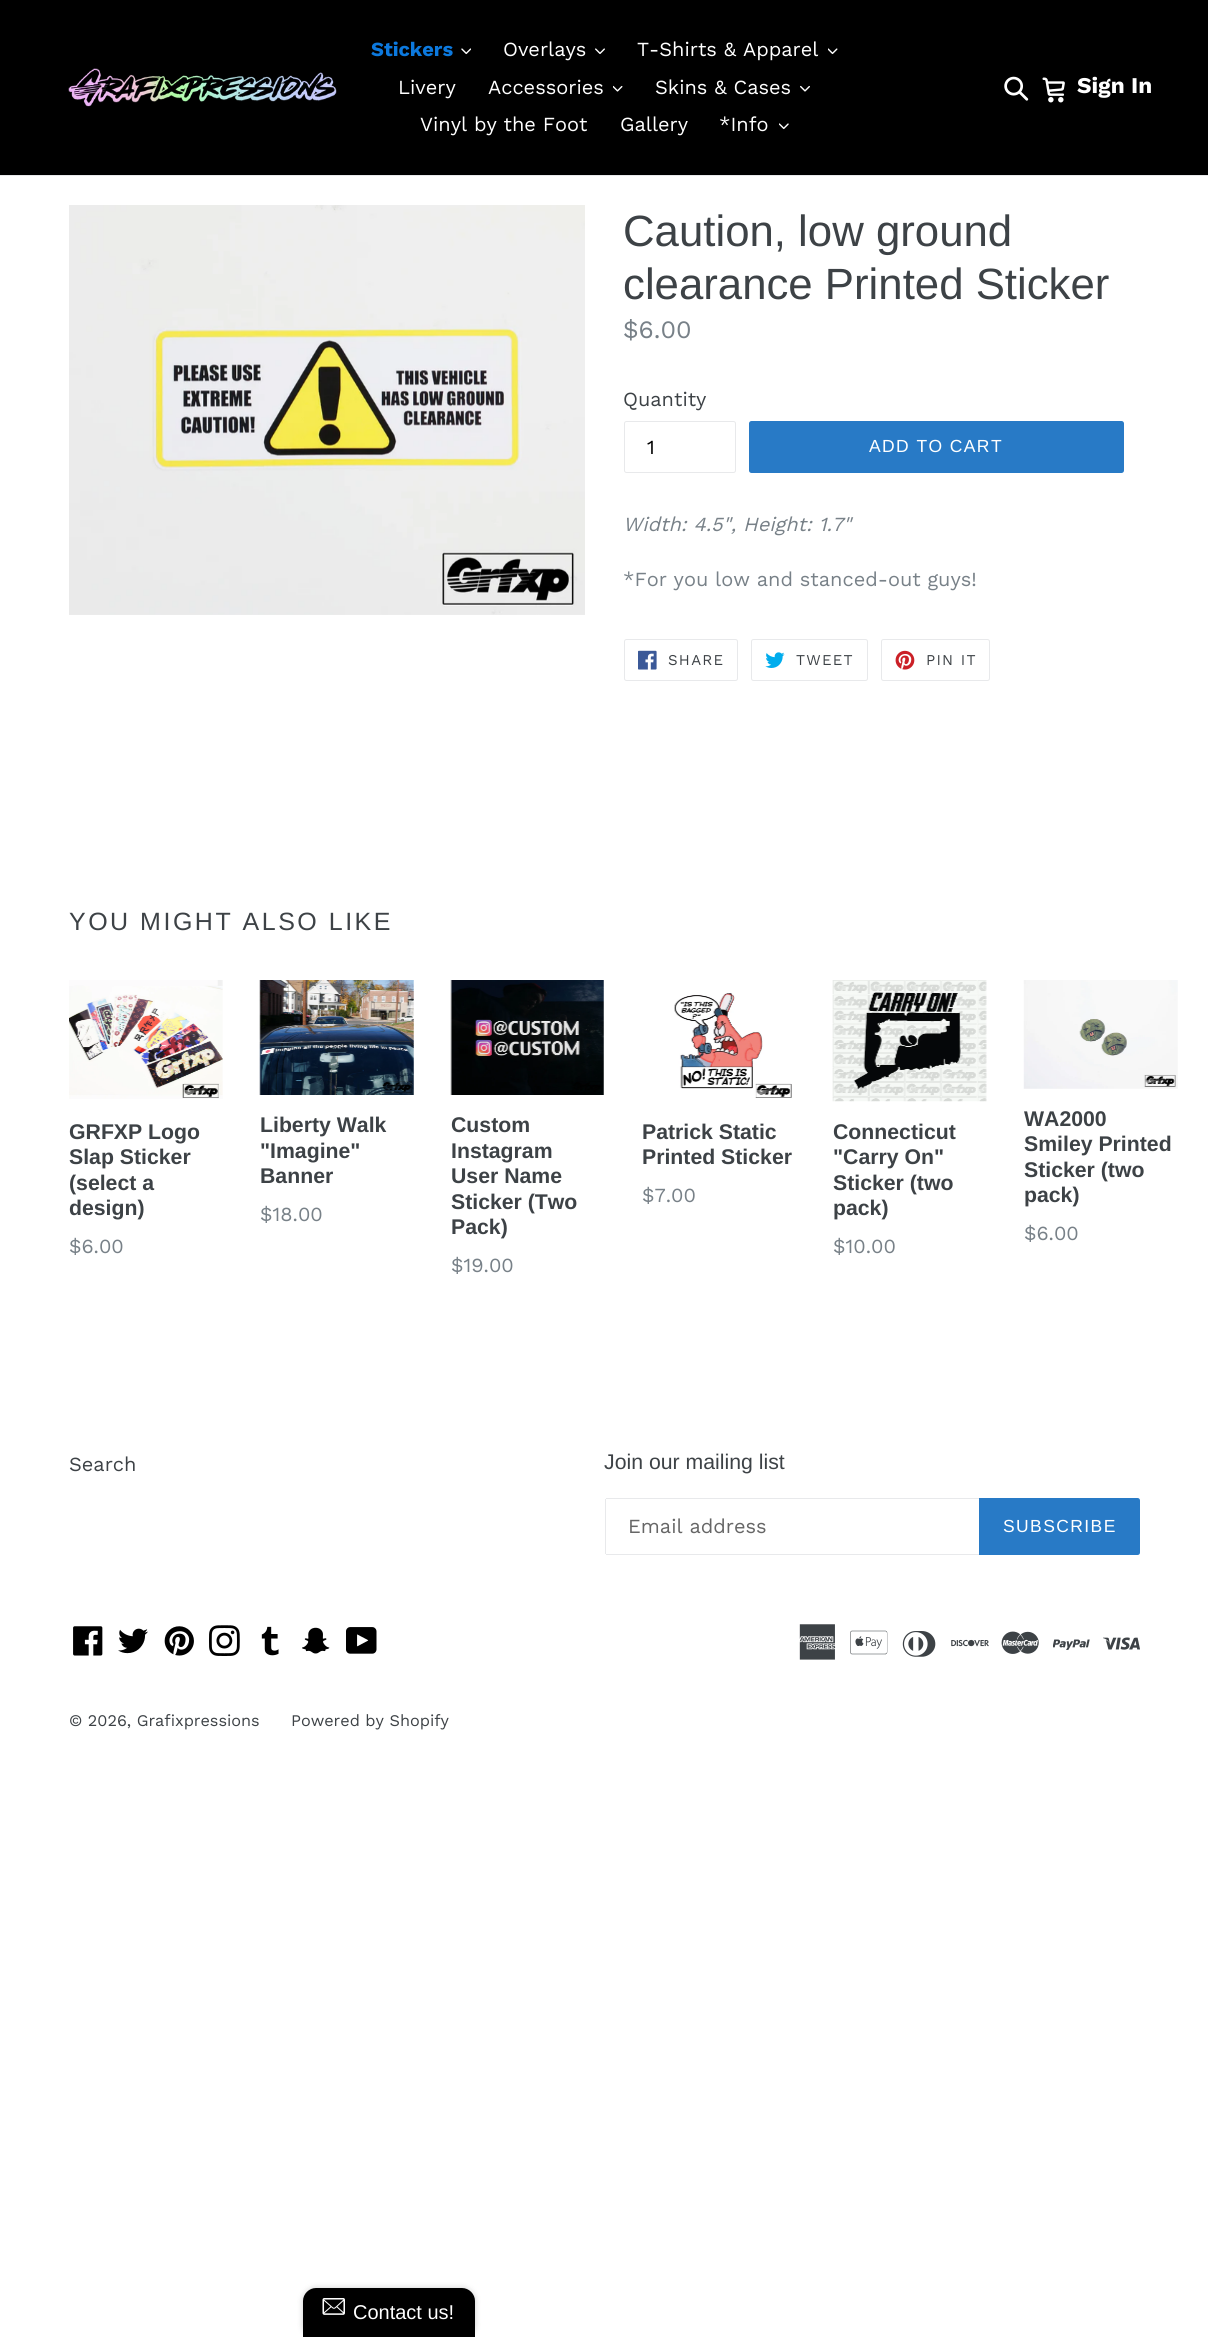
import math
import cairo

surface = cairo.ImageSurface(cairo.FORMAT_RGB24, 1208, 2337)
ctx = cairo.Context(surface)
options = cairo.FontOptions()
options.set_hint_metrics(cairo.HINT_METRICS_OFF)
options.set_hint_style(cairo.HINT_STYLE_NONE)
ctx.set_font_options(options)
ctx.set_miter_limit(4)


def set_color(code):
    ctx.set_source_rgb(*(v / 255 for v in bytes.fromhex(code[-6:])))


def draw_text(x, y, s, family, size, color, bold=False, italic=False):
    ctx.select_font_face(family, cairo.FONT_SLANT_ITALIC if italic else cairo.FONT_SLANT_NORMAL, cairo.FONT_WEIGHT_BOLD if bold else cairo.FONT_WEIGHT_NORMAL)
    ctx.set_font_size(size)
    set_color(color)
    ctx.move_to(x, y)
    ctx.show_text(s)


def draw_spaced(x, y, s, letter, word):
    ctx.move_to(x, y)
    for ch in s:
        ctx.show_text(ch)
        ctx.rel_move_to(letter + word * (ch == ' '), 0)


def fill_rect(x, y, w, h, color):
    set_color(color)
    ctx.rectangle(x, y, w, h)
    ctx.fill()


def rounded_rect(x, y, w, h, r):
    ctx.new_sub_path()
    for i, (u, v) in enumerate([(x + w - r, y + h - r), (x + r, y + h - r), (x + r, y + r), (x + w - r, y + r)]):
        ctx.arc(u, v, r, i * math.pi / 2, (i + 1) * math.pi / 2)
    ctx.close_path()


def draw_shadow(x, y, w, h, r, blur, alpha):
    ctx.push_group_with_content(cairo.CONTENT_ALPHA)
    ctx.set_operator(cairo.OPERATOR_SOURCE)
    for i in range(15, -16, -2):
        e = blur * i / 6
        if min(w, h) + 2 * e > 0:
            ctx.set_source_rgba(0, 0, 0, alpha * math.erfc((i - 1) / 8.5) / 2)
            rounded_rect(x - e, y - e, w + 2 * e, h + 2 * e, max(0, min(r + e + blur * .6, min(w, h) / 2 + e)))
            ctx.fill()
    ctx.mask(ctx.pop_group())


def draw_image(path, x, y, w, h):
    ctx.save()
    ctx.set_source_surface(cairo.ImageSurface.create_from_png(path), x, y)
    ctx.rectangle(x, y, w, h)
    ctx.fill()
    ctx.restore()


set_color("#ffffff")
ctx.paint()
fill_rect(0, 0, 1208, 175, "#000000")
fill_rect(0, 175, 1208, 1, "#e8e9eb")
draw_image("assets/img1.png", 68, 68, 269, 39)
draw_text(371, 56, "Stickers", "Work Sans", 20, "#0c79de", bold=True)
draw_image("assets/img2.png", 461, 48, 10, 7)
draw_text(503, 56, "Overlays", "Work Sans", 20, "#ffffff")
draw_image("assets/img3.png", 595, 48, 10, 6)
draw_text(637, 56, "T-Shirts & Apparel", "Work Sans", 20, "#ffffff")
draw_image("assets/img4.png", 828, 48, 10, 7)
draw_text(398, 94, "Livery", "Work Sans", 20, "#ffffff")
draw_text(488, 94, "Accessories", "Work Sans", 20, "#ffffff")
draw_image("assets/img5.png", 613, 85, 10, 7)
draw_text(655, 94, "Skins & Cases", "Work Sans", 20, "#ffffff")
draw_image("assets/img6.png", 800, 85, 10, 7)
draw_text(420, 131, "Vinyl by the Foot", "Work Sans", 20, "#ffffff")
draw_text(620, 131, "Gallery", "Work Sans", 20, "#ffffff")
draw_text(719, 131, "*Info", "Work Sans", 20, "#ffffff")
draw_image("assets/img7.png", 779, 123, 10, 7)
draw_image("assets/img8.png", 1004, 76, 25, 25)
draw_image("assets/img9.png", 1042, 77, 23, 26)
draw_text(1077, 93, "Sign In", "Work Sans", 22.5, "#ffffff", bold=True)
draw_image("assets/img10.png", 69, 205, 516, 410)
draw_text(623, 246, "Caution, low ground", "Liberation Sans", 43.75, "#3d4246")
draw_text(623, 299, "clearance Printed Sticker", "Liberation Sans", 43.75, "#3d4246")
draw_text(623, 338, "$6.00", "Work Sans", 25, "#788188")
draw_text(623, 406, "Quantity", "Work Sans", 20, "#3d4246")
rounded_rect(624.5, 421.5, 111, 51, 2)
set_color("#e8e9eb")
ctx.set_line_width(1)
ctx.stroke()
draw_text(647, 454, "1", "Work Sans", 20, "#000000")
set_color("#287ac6")
rounded_rect(749, 421, 375, 52, 2.5)
ctx.fill()
ctx.select_font_face("Liberation Sans")
ctx.set_font_size(17.5)
set_color("#ffffff")
draw_spaced(869, 452, "ADD TO CART", 1.4, 0)
draw_text(623, 531, "Width: 4.5\", Height: 1.7\"", "Work Sans", 20, "#788188", italic=True)
draw_text(623, 586, "*For you low and stanced-out guys!", "Work Sans", 20, "#788188")
rounded_rect(624.5, 639.5, 113, 41, 2)
set_color("#e8e9eb")
ctx.stroke()
draw_image("assets/img11.png", 638, 650, 19, 20)
ctx.set_font_size(15)
set_color("#3d4246")
draw_spaced(668, 665, "SHARE", 1.25, 0)
rounded_rect(751.5, 639.5, 116, 41, 2)
set_color("#e8e9eb")
ctx.stroke()
draw_image("assets/img12.png", 765, 652, 20, 16)
set_color("#3d4246")
draw_spaced(796, 665, "TWEET", 1.25, 0)
rounded_rect(881.5, 639.5, 108, 41, 2)
set_color("#e8e9eb")
ctx.stroke()
draw_image("assets/img13.png", 895, 650, 20, 20)
set_color("#3d4246")
draw_spaced(926, 665, "PIN IT", 1.25, 0)
ctx.select_font_face("Liberation Sans")
ctx.set_font_size(25)
draw_spaced(69, 930, "YOU MIGHT ALSO LIKE", 2.5, 0)
draw_image("assets/img14.png", 69, 980, 154, 119)
draw_text(69, 1139, "GRFXP Logo", "Liberation Sans", 21.25, "#3d4246", bold=True)
draw_text(69, 1164, "Slap Sticker", "Liberation Sans", 21.25, "#3d4246", bold=True)
draw_text(69, 1190, "(select a", "Liberation Sans", 21.25, "#3d4246", bold=True)
draw_text(69, 1215, "design)", "Liberation Sans", 21.25, "#3d4246", bold=True)
draw_text(69, 1253, "$6.00", "Work Sans", 20, "#788188")
draw_image("assets/img15.png", 259, 980, 155, 115)
draw_text(260, 1132, "Liberty Walk", "Liberation Sans", 21.25, "#3d4246", bold=True)
draw_text(260, 1158, "\"Imagine\"", "Liberation Sans", 21.25, "#3d4246", bold=True)
draw_text(260, 1183, "Banner", "Liberation Sans", 21.25, "#3d4246", bold=True)
draw_text(260, 1221, "$18.00", "Work Sans", 20, "#788188")
draw_image("assets/img16.png", 450, 980, 154, 115)
draw_text(451, 1132, "Custom", "Liberation Sans", 21.25, "#3d4246", bold=True)
draw_text(451, 1158, "Instagram", "Liberation Sans", 21.25, "#3d4246", bold=True)
draw_text(451, 1183, "User Name", "Liberation Sans", 21.25, "#3d4246", bold=True)
draw_text(451, 1209, "Sticker (Two", "Liberation Sans", 21.25, "#3d4246", bold=True)
draw_text(451, 1234, "Pack)", "Liberation Sans", 21.25, "#3d4246", bold=True)
draw_text(451, 1272, "$19.00", "Work Sans", 20, "#788188")
draw_image("assets/img17.png", 674, 993, 118, 105)
draw_text(642, 1139, "Patrick Static", "Liberation Sans", 21.25, "#3d4246", bold=True)
draw_text(642, 1164, "Printed Sticker", "Liberation Sans", 21.25, "#3d4246", bold=True)
draw_text(642, 1202, "$7.00", "Work Sans", 20, "#788188")
draw_image("assets/img18.png", 832, 980, 155, 122)
draw_text(833, 1139, "Connecticut", "Liberation Sans", 21.25, "#3d4246", bold=True)
draw_text(833, 1164, "\"Carry On\"", "Liberation Sans", 21.25, "#3d4246", bold=True)
draw_text(833, 1190, "Sticker (two", "Liberation Sans", 21.25, "#3d4246", bold=True)
draw_text(833, 1215, "pack)", "Liberation Sans", 21.25, "#3d4246", bold=True)
draw_text(833, 1253, "$10.00", "Work Sans", 20, "#788188")
draw_image("assets/img19.png", 1023, 980, 155, 109)
draw_text(1024, 1126, "WA2000", "Liberation Sans", 21.25, "#3d4246", bold=True)
draw_text(1024, 1151, "Smiley Printed", "Liberation Sans", 21.25, "#3d4246", bold=True)
draw_text(1024, 1177, "Sticker (two", "Liberation Sans", 21.25, "#3d4246", bold=True)
draw_text(1024, 1202, "pack)", "Liberation Sans", 21.25, "#3d4246", bold=True)
draw_text(1024, 1240, "$6.00", "Work Sans", 20, "#788188")
draw_text(69, 1471, "Search", "Work Sans", 20, "#3d4246")
draw_text(604, 1469, "Join our mailing list", "Liberation Sans", 21.25, "#3d4246")
fill_rect(606, 1498, 373, 1, "#e8e9eb")
fill_rect(606, 1554, 373, 1, "#e8e9eb")
fill_rect(605, 1499, 1, 55, "#e8e9eb")
draw_text(628, 1533, "Email address", "Work Sans", 20, "#666666")
set_color("#287ac6")
ctx.new_path()
ctx.move_to(979, 1498)
ctx.line_to(1137.5, 1498)
ctx.curve_to(1139, 1498, 1140, 1499, 1140, 1500.5)
ctx.line_to(1140, 1552.5)
ctx.curve_to(1140, 1554, 1139, 1555, 1137.5, 1555)
ctx.line_to(979, 1555)
ctx.close_path()
ctx.fill()
ctx.select_font_face("Liberation Sans")
ctx.set_font_size(17.5)
set_color("#ffffff")
draw_spaced(1003, 1532, "SUBSCRIBE", 1.4, 0)
draw_image("assets/img20.png", 73, 1626, 30, 30)
draw_image("assets/img21.png", 118, 1628, 30, 26)
draw_image("assets/img22.png", 164, 1626, 30, 30)
draw_image("assets/img23.png", 209, 1625, 31, 31)
draw_image("assets/img24.png", 261, 1626, 18, 30)
draw_image("assets/img25.png", 302, 1627, 28, 27)
draw_image("assets/img26.png", 346, 1627, 31, 27)
draw_image("assets/img27.png", 799, 1624, 37, 36)
draw_image("assets/img28.png", 850, 1630, 38, 25)
draw_image("assets/img29.png", 902, 1631, 34, 26)
draw_image("assets/img30.png", 951, 1639, 38, 8)
draw_image("assets/img31.png", 1001, 1631, 38, 23)
draw_image("assets/img32.png", 1053, 1639, 37, 11)
draw_image("assets/img33.png", 1103, 1637, 37, 13)
draw_text(69, 1726, "© 2026, Grafixpressions", "Work Sans", 16.25, "#3d4246")
draw_text(291, 1726, "Powered by Shopify", "Work Sans", 16.25, "#3d4246")
set_color("#000000")
draw_shadow(303, 2288, 172, 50, 13, 3, 0.2)
set_color("#000000")
ctx.new_path()
ctx.move_to(316, 2288)
ctx.line_to(462, 2288)
ctx.curve_to(469, 2288, 475, 2294, 475, 2301)
ctx.line_to(475, 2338)
ctx.line_to(303, 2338)
ctx.line_to(303, 2301)
ctx.curve_to(303, 2294, 309, 2288, 316, 2288)
ctx.close_path()
ctx.fill()
draw_image("assets/img34.png", 322, 2298, 23, 17)
draw_text(353, 2319, "Contact us!", "Liberation Sans", 20, "#ffffff")
surface.write_to_png("output.png")
